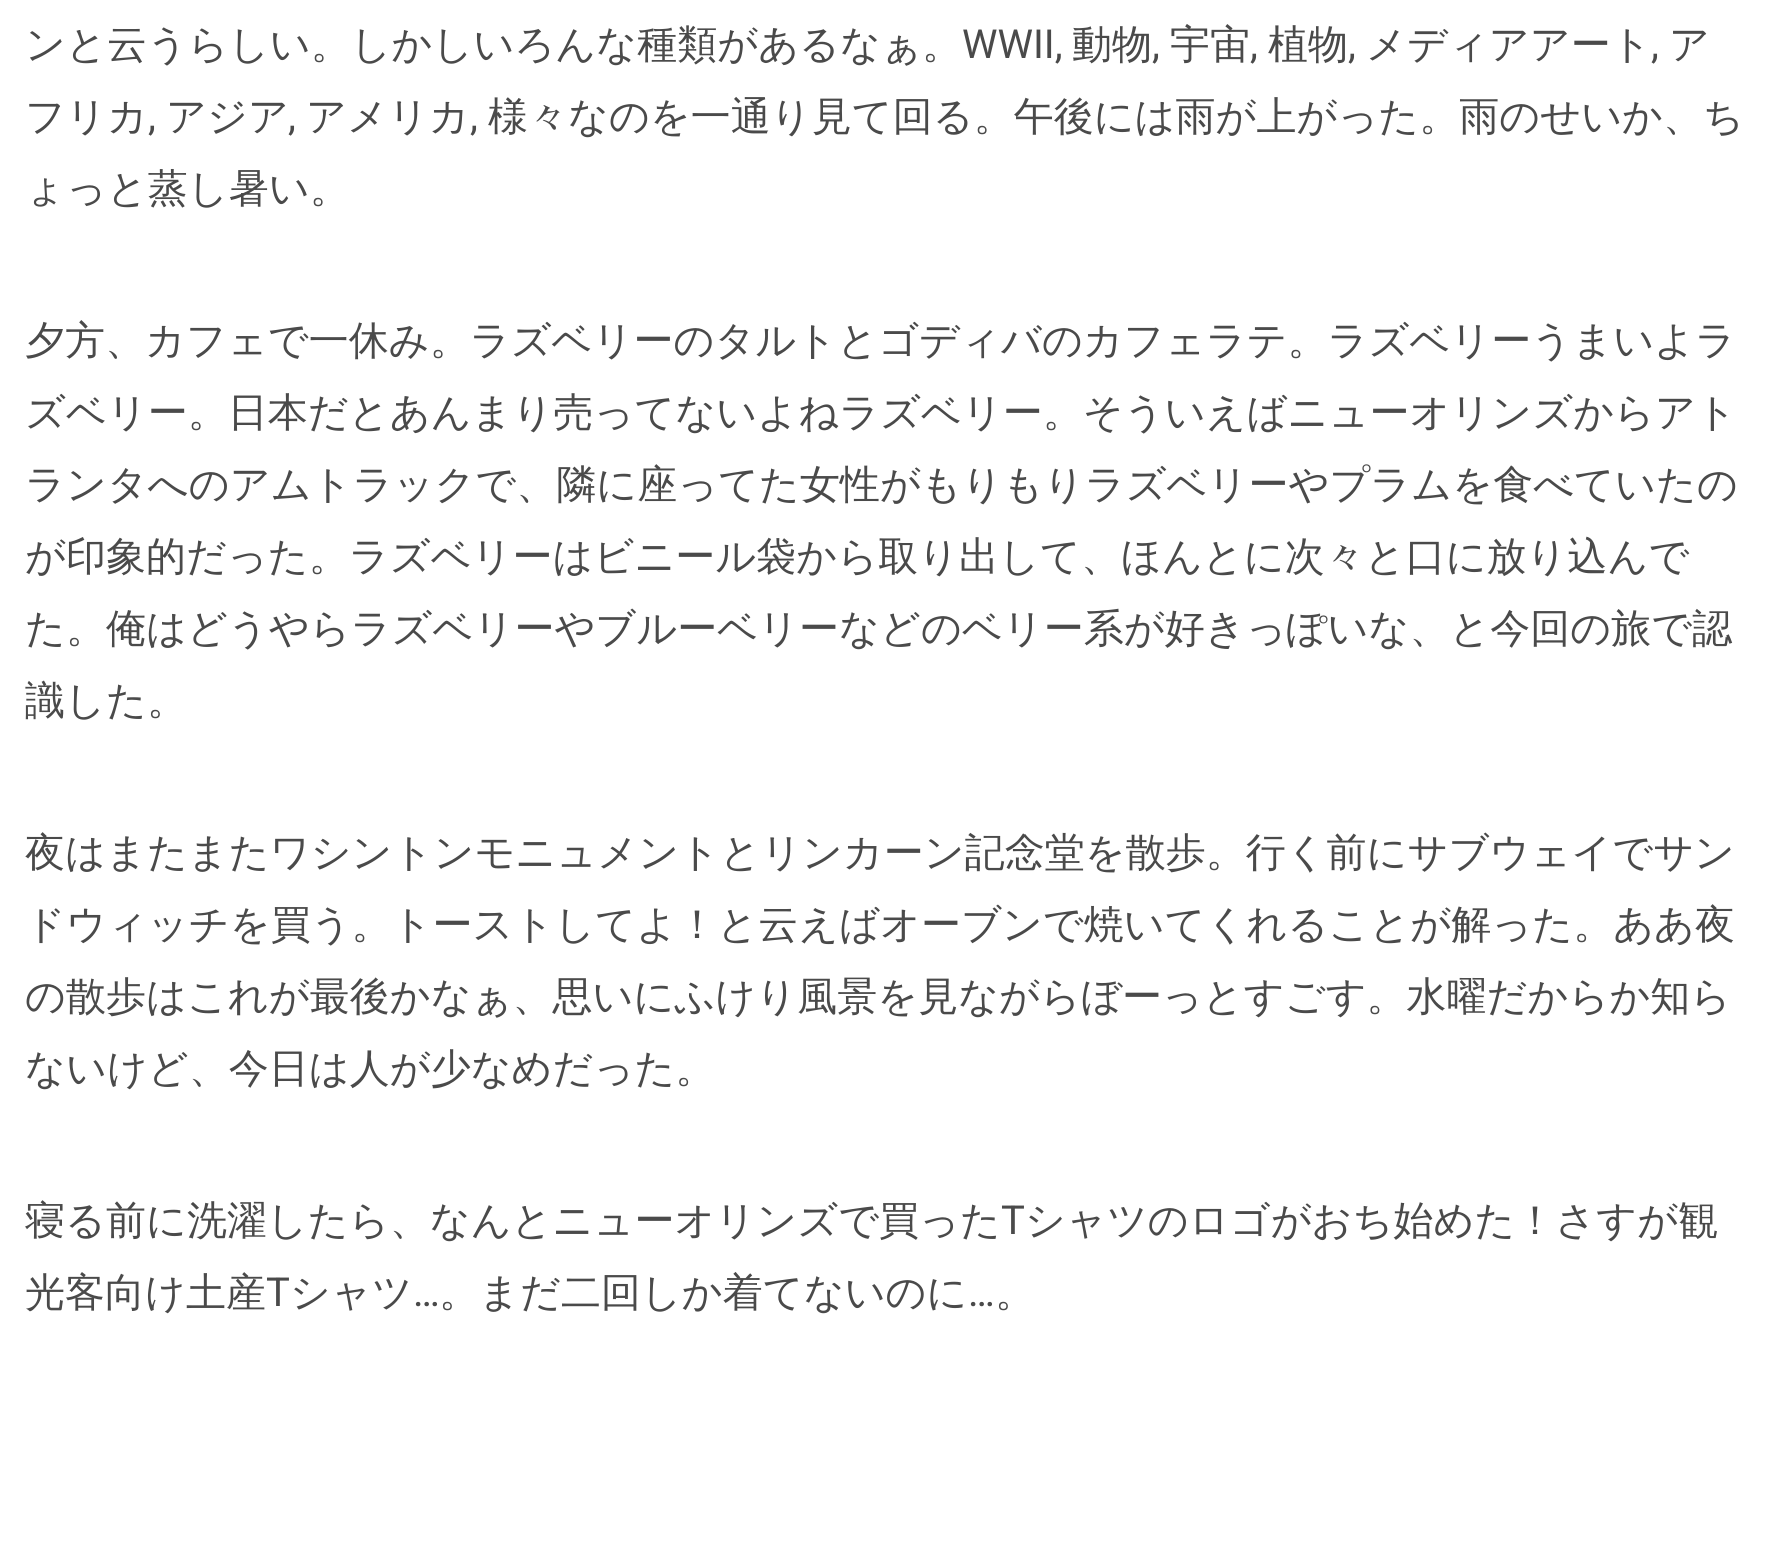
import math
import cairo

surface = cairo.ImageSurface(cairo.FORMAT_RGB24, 1773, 1544)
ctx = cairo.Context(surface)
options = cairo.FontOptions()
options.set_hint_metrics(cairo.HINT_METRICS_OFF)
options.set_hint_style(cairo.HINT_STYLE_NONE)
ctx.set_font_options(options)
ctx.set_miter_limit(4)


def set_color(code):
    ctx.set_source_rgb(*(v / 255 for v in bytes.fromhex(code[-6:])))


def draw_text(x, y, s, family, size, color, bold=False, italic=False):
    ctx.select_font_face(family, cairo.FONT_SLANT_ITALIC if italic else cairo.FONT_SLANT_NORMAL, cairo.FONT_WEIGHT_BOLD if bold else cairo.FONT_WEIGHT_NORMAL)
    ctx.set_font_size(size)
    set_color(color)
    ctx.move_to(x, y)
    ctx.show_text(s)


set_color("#ffffff")
ctx.paint()
draw_text(25, 58, "ンと云うらしい。しかしいろんな種類があるなぁ。", "WenQuanYi Zen Hei Medium", 40, "#4a4a4a")
draw_text(962, 58, "WWII,", "Roboto", 40, "#4a4a4a")
draw_text(1072, 58, "動物", "WenQuanYi Zen Hei Medium", 40, "#4a4a4a")
draw_text(1152, 58, ",", "Roboto", 40, "#4a4a4a")
draw_text(1170, 58, "宇宙", "WenQuanYi Zen Hei Medium", 40, "#4a4a4a")
draw_text(1250, 58, ",", "Roboto", 40, "#4a4a4a")
draw_text(1268, 58, "植物", "WenQuanYi Zen Hei Medium", 40, "#4a4a4a")
draw_text(1348, 58, ",", "Roboto", 40, "#4a4a4a")
draw_text(1366, 58, "メディアアート", "WenQuanYi Zen Hei Medium", 40, "#4a4a4a")
draw_text(1651, 58, ",", "Roboto", 40, "#4a4a4a")
draw_text(1669, 58, "ア", "WenQuanYi Zen Hei Medium", 40, "#4a4a4a")
draw_text(25, 130, "フリカ", "WenQuanYi Zen Hei Medium", 40, "#4a4a4a")
draw_text(148, 130, ",", "Roboto", 40, "#4a4a4a")
draw_text(166, 130, "アジア", "WenQuanYi Zen Hei Medium", 40, "#4a4a4a")
draw_text(288, 130, ",", "Roboto", 40, "#4a4a4a")
draw_text(306, 130, "アメリカ", "WenQuanYi Zen Hei Medium", 40, "#4a4a4a")
draw_text(470, 130, ",", "Roboto", 40, "#4a4a4a")
draw_text(488, 130, "様々なのを一通り見て回る。午後には雨が上がった。雨のせいか、ち", "WenQuanYi Zen Hei Medium", 40, "#4a4a4a")
draw_text(25, 202, "ょっと蒸し暑い。", "WenQuanYi Zen Hei Medium", 40, "#4a4a4a")
draw_text(25, 354, "夕方、カフェで一休み。ラズベリーのタルトとゴディバのカフェラテ。ラズベリーうまいよラ", "WenQuanYi Zen Hei Medium", 40, "#4a4a4a")
draw_text(25, 426, "ズベリー。日本だとあんまり売ってないよねラズベリー。そういえばニューオリンズからアト", "WenQuanYi Zen Hei Medium", 40, "#4a4a4a")
draw_text(25, 498, "ランタへのアムトラックで、隣に座ってた女性がもりもりラズベリーやプラムを食べていたの", "WenQuanYi Zen Hei Medium", 40, "#4a4a4a")
draw_text(25, 570, "が印象的だった。ラズベリーはビニール袋から取り出して、ほんとに次々と口に放り込んで", "WenQuanYi Zen Hei Medium", 40, "#4a4a4a")
draw_text(25, 642, "た。俺はどうやらラズベリーやブルーベリーなどのベリー系が好きっぽいな、と今回の旅で認", "WenQuanYi Zen Hei Medium", 40, "#4a4a4a")
draw_text(25, 714, "識した。", "WenQuanYi Zen Hei Medium", 40, "#4a4a4a")
draw_text(25, 866, "夜はまたまたワシントンモニュメントとリンカーン記念堂を散歩。行く前にサブウェイでサン", "WenQuanYi Zen Hei Medium", 40, "#4a4a4a")
draw_text(25, 938, "ドウィッチを買う。トーストしてよ！と云えばオーブンで焼いてくれることが解った。ああ夜", "WenQuanYi Zen Hei Medium", 40, "#4a4a4a")
draw_text(25, 1010, "の散歩はこれが最後かなぁ、思いにふけり風景を見ながらぼーっとすごす。水曜だからか知ら", "WenQuanYi Zen Hei Medium", 40, "#4a4a4a")
draw_text(25, 1082, "ないけど、今日は人が少なめだった。", "WenQuanYi Zen Hei Medium", 40, "#4a4a4a")
draw_text(25, 1234, "寝る前に洗濯したら、なんとニューオリンズで買った", "WenQuanYi Zen Hei Medium", 40, "#4a4a4a")
draw_text(1001, 1234, "T", "Roboto", 40, "#4a4a4a")
draw_text(1025, 1234, "シャツのロゴがおち始めた！さすが観", "WenQuanYi Zen Hei Medium", 40, "#4a4a4a")
draw_text(25, 1306, "光客向け土産", "WenQuanYi Zen Hei Medium", 40, "#4a4a4a")
draw_text(266, 1306, "T", "Roboto", 40, "#4a4a4a")
draw_text(290, 1306, "シャツ", "WenQuanYi Zen Hei Medium", 40, "#4a4a4a")
draw_text(413, 1306, "…", "Roboto", 40, "#4a4a4a")
draw_text(439, 1306, "。まだ二回しか着てないのに", "WenQuanYi Zen Hei Medium", 40, "#4a4a4a")
draw_text(968, 1306, "…", "Roboto", 40, "#4a4a4a")
draw_text(995, 1306, "。", "WenQuanYi Zen Hei Medium", 40, "#4a4a4a")
surface.write_to_png("output.png")
